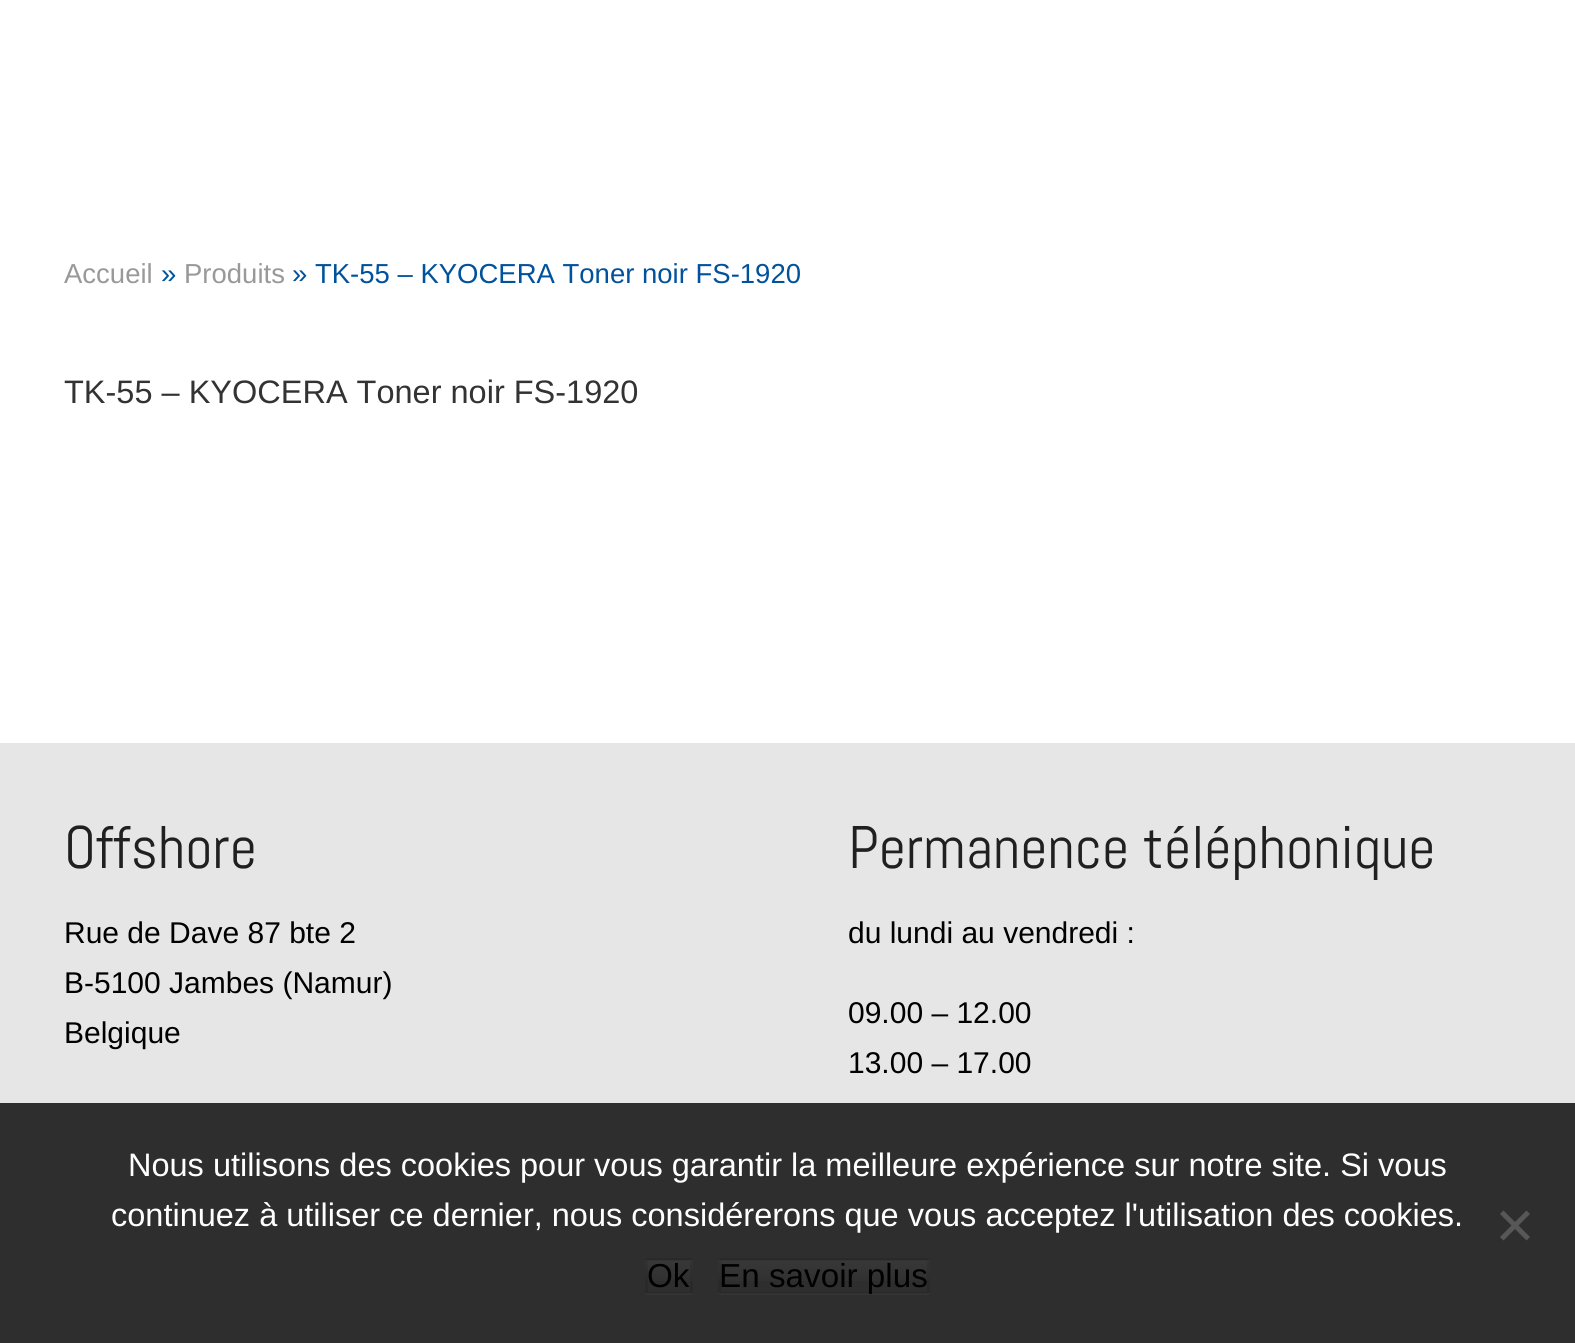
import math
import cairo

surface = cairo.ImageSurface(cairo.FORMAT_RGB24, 1575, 1343)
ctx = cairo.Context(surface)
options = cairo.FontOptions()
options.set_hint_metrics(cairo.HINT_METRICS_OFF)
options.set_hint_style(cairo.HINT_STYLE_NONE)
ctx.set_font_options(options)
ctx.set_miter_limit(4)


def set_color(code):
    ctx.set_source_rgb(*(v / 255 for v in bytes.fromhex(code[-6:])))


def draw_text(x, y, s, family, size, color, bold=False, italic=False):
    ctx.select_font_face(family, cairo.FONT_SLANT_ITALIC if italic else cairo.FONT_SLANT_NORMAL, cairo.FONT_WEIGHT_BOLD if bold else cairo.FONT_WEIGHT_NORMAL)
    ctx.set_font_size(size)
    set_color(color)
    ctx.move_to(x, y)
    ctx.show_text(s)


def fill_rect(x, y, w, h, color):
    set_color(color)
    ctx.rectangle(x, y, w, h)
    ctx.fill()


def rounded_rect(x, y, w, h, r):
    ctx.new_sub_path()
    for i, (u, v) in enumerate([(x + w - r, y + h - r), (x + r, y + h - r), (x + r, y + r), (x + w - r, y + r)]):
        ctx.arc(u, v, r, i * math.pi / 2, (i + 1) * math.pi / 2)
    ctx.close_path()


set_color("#ffffff")
ctx.paint()
draw_text(64, 283, "Accueil", "Liberation Sans", 27.5, "#999999")
draw_text(161, 283, "»", "Liberation Sans", 27.5, "#00529c")
draw_text(184, 283, "Produits", "Liberation Sans", 27.5, "#999999")
draw_text(292, 283, "» TK-55 – KYOCERA Toner noir FS-1920", "Liberation Sans", 27.5, "#00529c")
draw_text(64, 403, "TK-55 – KYOCERA Toner noir FS-1920", "Liberation Sans", 32.5, "#333333")
fill_rect(0, 743, 1575, 600, "#e6e6e6")
draw_text(64, 868, "Offshore", "Abel", 60, "#202020")
draw_text(64, 943, "Rue de Dave 87 bte 2", "Liberation Sans", 30, "#000000")
draw_text(64, 993, "B-5100 Jambes (Namur)", "Liberation Sans", 30, "#000000")
draw_text(64, 1043, "Belgique", "Liberation Sans", 30, "#000000")
draw_text(848, 868, "Permanence téléphonique", "Abel", 60, "#202020")
draw_text(848, 943, "du lundi au vendredi :", "Liberation Sans", 30, "#000000")
draw_text(848, 1023, "09.00 – 12.00", "Liberation Sans", 30, "#000000")
draw_text(848, 1073, "13.00 – 17.00", "Liberation Sans", 30, "#000000")
ctx.set_source_rgba(0, 0, 0, 0.8)
ctx.rectangle(0, 1103, 1575, 240)
ctx.fill()
draw_text(128, 1176, "Nous utilisons des cookies pour vous garantir la meilleure expérience sur notre site. Si vous", "Liberation Sans", 32.5, "#ffffff")
draw_text(111, 1226, "continuez à utiliser ce dernier, nous considérerons que vous acceptez l'utilisation des cookies.", "Liberation Sans", 32.5, "#ffffff")
set_color("#575757")
ctx.new_path()
ctx.move_to(1526.5, 1210.5)
ctx.line_to(1530, 1214)
ctx.line_to(1503.5, 1240.5)
ctx.line_to(1500, 1237)
ctx.close_path()
ctx.fill()
ctx.new_path()
ctx.move_to(1500, 1214)
ctx.line_to(1503.5, 1210.5)
ctx.line_to(1530, 1237)
ctx.line_to(1526.5, 1240.5)
ctx.close_path()
ctx.fill()
gradient = cairo.LinearGradient(669, 1260, 669, 1293)
gradient.add_color_stop_rgba(0, 0.22, 0.22, 0.22, 1)
gradient.add_color_stop_rgba(1, 0.173, 0.173, 0.173, 1)
ctx.set_source(gradient)
ctx.rectangle(645, 1260, 48, 21)
ctx.fill()
ctx.save()
rounded_rect(645, 1258, 48, 37, 2.5)
ctx.clip()
gradient = cairo.LinearGradient(669, 1293, 669, 1325)
gradient.add_color_stop_rgba(0, 0.22, 0.22, 0.22, 1)
gradient.add_color_stop_rgba(1, 0.173, 0.173, 0.173, 1)
ctx.set_source(gradient)
ctx.rectangle(645, 1293, 48, 2)
ctx.fill()
ctx.restore()
rounded_rect(646.5, 1259.5, 45, 34, 1)
ctx.set_source_rgba(0, 0, 0, 0.1)
ctx.set_line_width(3)
ctx.stroke()
draw_text(647, 1287, "Ok", "Liberation Sans", 33.25, "#000000")
gradient = cairo.LinearGradient(824, 1260, 824, 1293)
gradient.add_color_stop_rgba(0, 0.22, 0.22, 0.22, 1)
gradient.add_color_stop_rgba(1, 0.173, 0.173, 0.173, 1)
ctx.set_source(gradient)
ctx.rectangle(718, 1260, 212, 21)
ctx.fill()
ctx.save()
rounded_rect(718, 1258, 212, 37, 2.5)
ctx.clip()
gradient = cairo.LinearGradient(824, 1293, 824, 1325)
gradient.add_color_stop_rgba(0, 0.22, 0.22, 0.22, 1)
gradient.add_color_stop_rgba(1, 0.173, 0.173, 0.173, 1)
ctx.set_source(gradient)
ctx.rectangle(718, 1293, 212, 2)
ctx.fill()
ctx.restore()
rounded_rect(719.5, 1259.5, 209, 34, 1)
ctx.set_source_rgba(0, 0, 0, 0.1)
ctx.stroke()
draw_text(719, 1287, "En savoir plus", "Liberation Sans", 33.25, "#000000")
surface.write_to_png("output.png")
